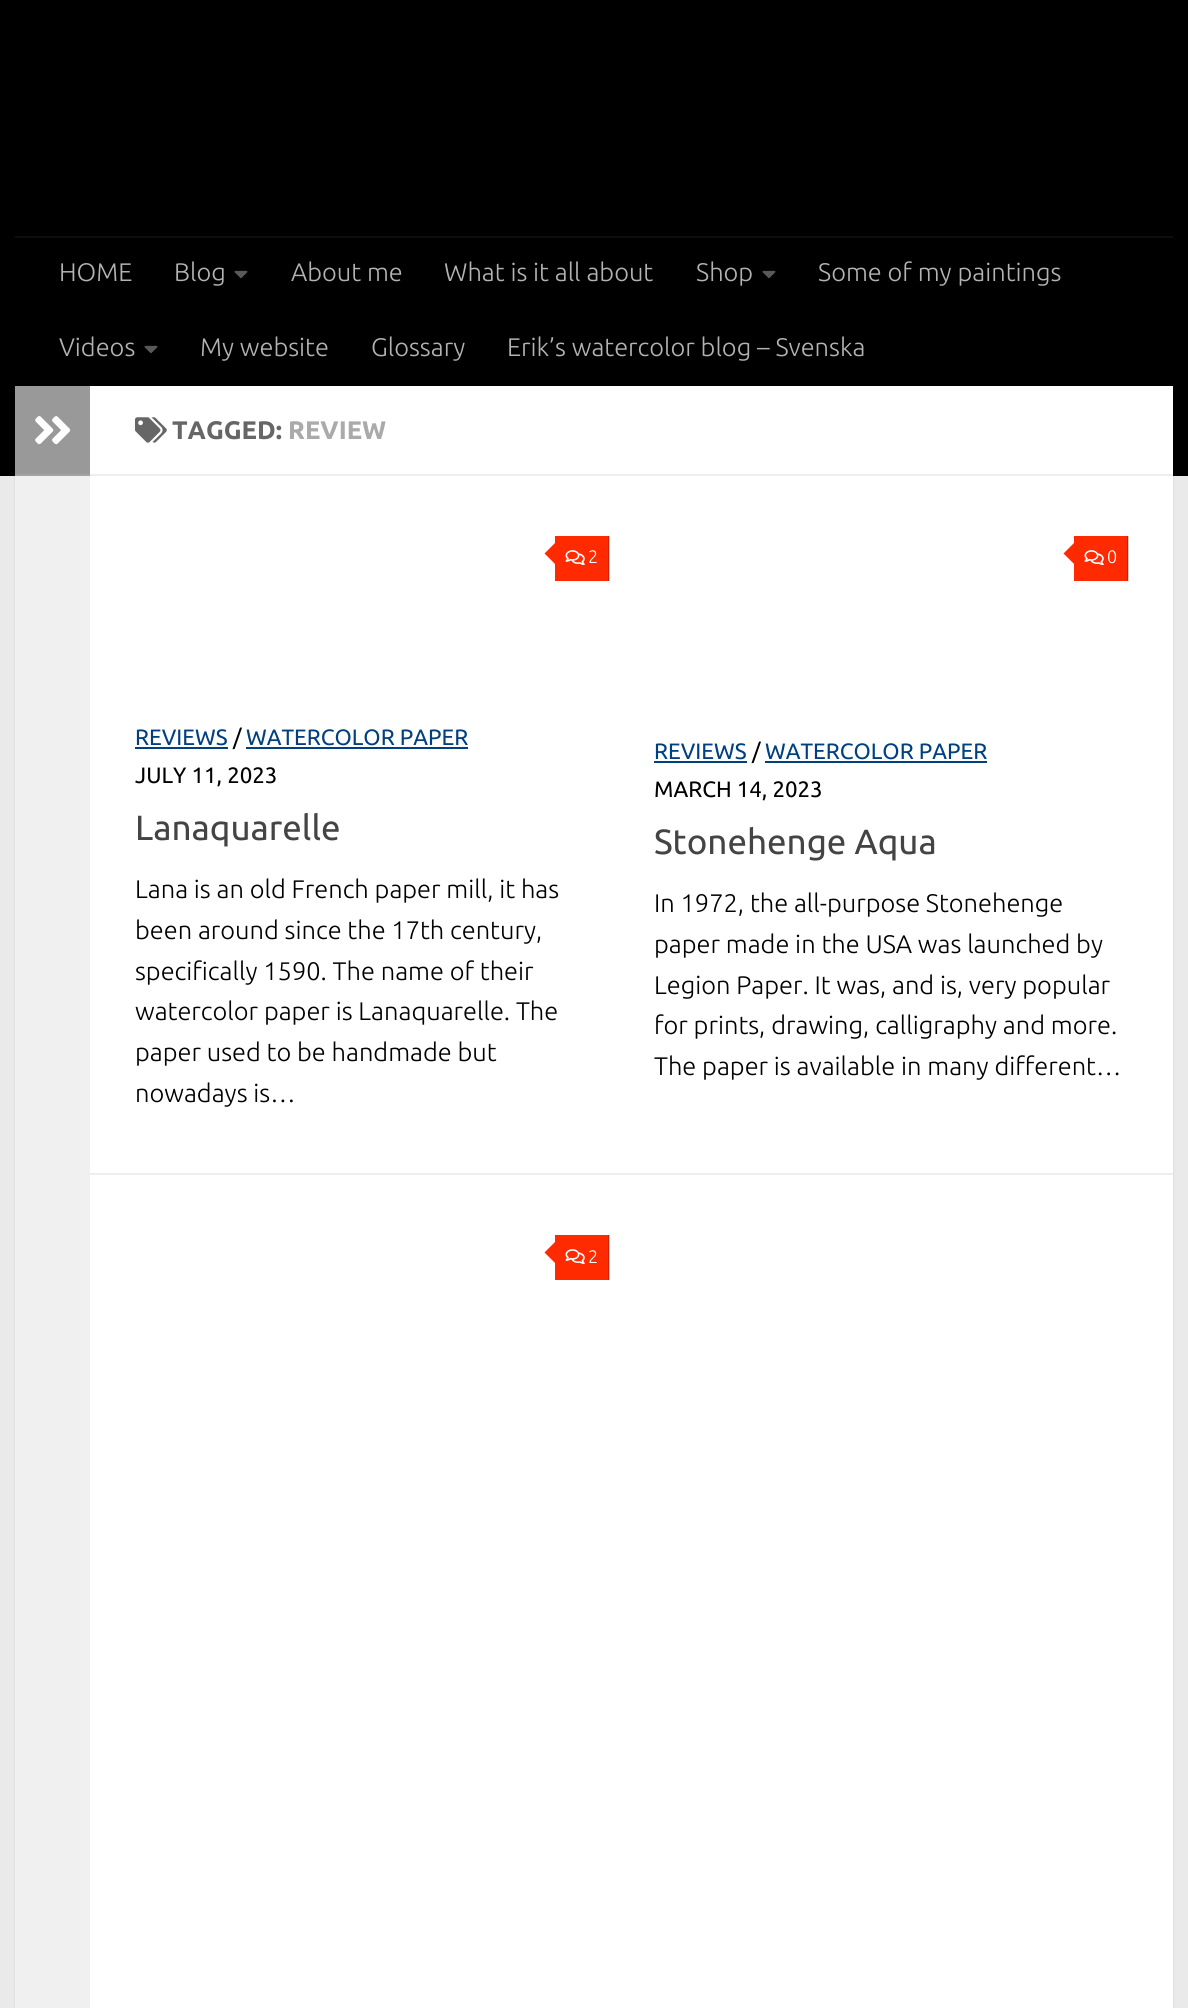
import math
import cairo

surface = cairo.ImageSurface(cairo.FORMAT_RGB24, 1188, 2008)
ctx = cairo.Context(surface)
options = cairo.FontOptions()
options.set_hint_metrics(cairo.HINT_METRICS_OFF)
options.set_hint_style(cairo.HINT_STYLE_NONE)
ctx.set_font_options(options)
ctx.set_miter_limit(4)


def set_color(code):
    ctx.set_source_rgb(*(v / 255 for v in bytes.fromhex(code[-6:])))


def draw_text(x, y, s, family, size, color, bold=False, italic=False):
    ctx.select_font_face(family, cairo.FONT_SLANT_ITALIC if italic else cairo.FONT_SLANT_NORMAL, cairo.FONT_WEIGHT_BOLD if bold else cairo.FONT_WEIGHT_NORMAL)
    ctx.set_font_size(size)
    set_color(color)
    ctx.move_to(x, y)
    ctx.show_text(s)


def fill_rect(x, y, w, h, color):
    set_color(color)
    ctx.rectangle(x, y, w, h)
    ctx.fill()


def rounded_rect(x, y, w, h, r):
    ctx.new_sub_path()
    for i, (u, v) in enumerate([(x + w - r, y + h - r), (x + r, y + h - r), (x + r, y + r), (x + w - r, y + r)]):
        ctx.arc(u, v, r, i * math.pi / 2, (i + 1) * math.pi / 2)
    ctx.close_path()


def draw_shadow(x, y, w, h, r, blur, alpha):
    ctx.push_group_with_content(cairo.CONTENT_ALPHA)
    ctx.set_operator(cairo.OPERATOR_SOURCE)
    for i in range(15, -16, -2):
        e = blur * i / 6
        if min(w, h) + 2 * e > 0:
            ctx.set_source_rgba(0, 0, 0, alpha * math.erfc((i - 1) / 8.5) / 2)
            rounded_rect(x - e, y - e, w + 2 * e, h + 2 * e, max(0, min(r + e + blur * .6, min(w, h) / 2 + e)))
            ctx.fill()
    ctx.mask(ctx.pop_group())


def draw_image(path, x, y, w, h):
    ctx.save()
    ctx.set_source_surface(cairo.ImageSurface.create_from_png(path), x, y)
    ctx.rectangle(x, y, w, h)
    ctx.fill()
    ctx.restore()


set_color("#eaeaea")
ctx.paint()
set_color("#000000")
draw_shadow(15, 387, 1158, 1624, 0, 1, 0.1)
fill_rect(0, 0, 1188, 476, "#000000")
fill_rect(15, 236, 1158, 2, "#0d0d0d")
draw_text(59, 281, "HOME", "Ubuntu Light", 25.4, "#b3b3b3")
draw_text(174, 281, "Blog", "Ubuntu Light", 25.4, "#b3b3b3")
draw_image("assets/img1.png", 234, 270, 14, 9)
draw_text(291, 281, "About me", "Ubuntu Light", 25.4, "#b3b3b3")
draw_text(444, 281, "What is it all about", "Ubuntu Light", 25.4, "#b3b3b3")
draw_text(696, 281, "Shop", "Ubuntu Light", 25.4, "#b3b3b3")
draw_image("assets/img1.png", 762, 270, 14, 9)
draw_text(818, 281, "Some of my paintings", "Ubuntu Light", 25.4, "#b3b3b3")
draw_text(59, 356, "Videos", "Ubuntu Light", 25.4, "#b3b3b3")
draw_image("assets/img1.png", 144, 345, 14, 9)
draw_text(200, 356, "My website", "Ubuntu Light", 25.4, "#b3b3b3")
draw_text(371, 356, "Glossary", "Ubuntu Light", 25.4, "#b3b3b3")
draw_text(507, 356, "Erik’s watercolor blog – Svenska", "Ubuntu Light", 25.4, "#b3b3b3")
fill_rect(90, 386, 1083, 1622, "#ffffff")
fill_rect(609, 1235, 1, 45, "#cccccc")
fill_rect(1128, 536, 1, 45, "#cccccc")
fill_rect(609, 536, 1, 45, "#cccccc")
fill_rect(15, 476, 75, 1532, "#f0f0f0")
fill_rect(15, 386, 75, 88, "#999999")
fill_rect(15, 474, 75, 2, "#a3a3a3")
draw_image("assets/img2.png", 35, 416, 36, 29)
fill_rect(90, 474, 1083, 2, "#eeeeee")
draw_image("assets/img3.png", 135, 417, 32, 26)
draw_text(172, 439, "TAGGED:", "Ubuntu", 25.4, "#666666", bold=True)
draw_text(288, 439, "REVIEW", "Ubuntu", 25.4, "#aaaaaa", bold=True)
fill_rect(90, 1173, 1083, 2, "#eeeeee")
fill_rect(555, 536, 53, 45, "#ff2a00")
fill_rect(608, 536, 1, 45, "#cc2200")
set_color("#ff2a00")
ctx.new_path()
ctx.move_to(558, 540)
ctx.line_to(558, 567)
ctx.line_to(544.5, 553.5)
ctx.close_path()
ctx.fill()
draw_image("assets/img4.png", 565, 550, 20, 16)
draw_text(588, 563, "2", "Ubuntu Light", 18, "#ffffff")
draw_text(135, 745, "REVIEWS", "Ubuntu", 22.25, "#004080")
fill_rect(135, 747, 93, 2, "#004080")
draw_text(233, 745, "/", "Ubuntu", 22.25, "#000000")
draw_text(246, 745, "WATERCOLOR PAPER", "Ubuntu", 22.25, "#004080")
fill_rect(246, 747, 222, 2, "#004080")
draw_text(135, 783, "JULY 11, 2023", "Ubuntu", 22.25, "#000000")
draw_text(135, 840, "Lanaquarelle", "Ubuntu", 35, "#444444")
draw_text(135, 898, "Lana is an old French paper mill, it has", "Ubuntu Light", 25.4, "#000000")
draw_text(135, 939, "been around since the 17th century,", "Ubuntu Light", 25.4, "#000000")
draw_text(135, 980, "specifically 1590. The name of their", "Ubuntu Light", 25.4, "#000000")
draw_text(135, 1020, "watercolor paper is Lanaquarelle. The", "Ubuntu Light", 25.4, "#000000")
draw_text(135, 1061, "paper used to be handmade but", "Ubuntu Light", 25.4, "#000000")
draw_text(135, 1102, "nowadays is…", "Ubuntu Light", 25.4, "#000000")
fill_rect(1074, 536, 53, 45, "#ff2a00")
fill_rect(1127, 536, 1, 45, "#cc2200")
set_color("#ff2a00")
ctx.new_path()
ctx.move_to(1077, 540)
ctx.line_to(1077, 567)
ctx.line_to(1063.5, 553.5)
ctx.close_path()
ctx.fill()
draw_image("assets/img4.png", 1084, 550, 20, 16)
draw_text(1107, 563, "0", "Ubuntu Light", 18, "#ffffff")
draw_text(654, 759, "REVIEWS", "Ubuntu", 22.25, "#004080")
fill_rect(654, 761, 93, 2, "#004080")
draw_text(752, 759, "/", "Ubuntu", 22.25, "#000000")
draw_text(765, 759, "WATERCOLOR PAPER", "Ubuntu", 22.25, "#004080")
fill_rect(765, 761, 222, 2, "#004080")
draw_text(654, 797, "MARCH 14, 2023", "Ubuntu", 22.25, "#000000")
draw_text(654, 854, "Stonehenge Aqua", "Ubuntu", 35, "#444444")
draw_text(654, 912, "In 1972, the all-purpose Stonehenge", "Ubuntu Light", 25.4, "#000000")
draw_text(654, 953, "paper made in the USA was launched by", "Ubuntu Light", 25.4, "#000000")
draw_text(654, 994, "Legion Paper. It was, and is, very popular", "Ubuntu Light", 25.4, "#000000")
draw_text(654, 1034, "for prints, drawing, calligraphy and more.", "Ubuntu Light", 25.4, "#000000")
draw_text(654, 1075, "The paper is available in many different…", "Ubuntu Light", 25.4, "#000000")
fill_rect(555, 1235, 53, 45, "#ff2a00")
fill_rect(608, 1235, 1, 45, "#cc2200")
set_color("#ff2a00")
ctx.new_path()
ctx.move_to(558, 1239)
ctx.line_to(558, 1266)
ctx.line_to(544.5, 1252.5)
ctx.close_path()
ctx.fill()
draw_image("assets/img4.png", 565, 1249, 20, 16)
draw_text(588, 1263, "2", "Ubuntu Light", 18, "#ffffff")
surface.write_to_png("output.png")
